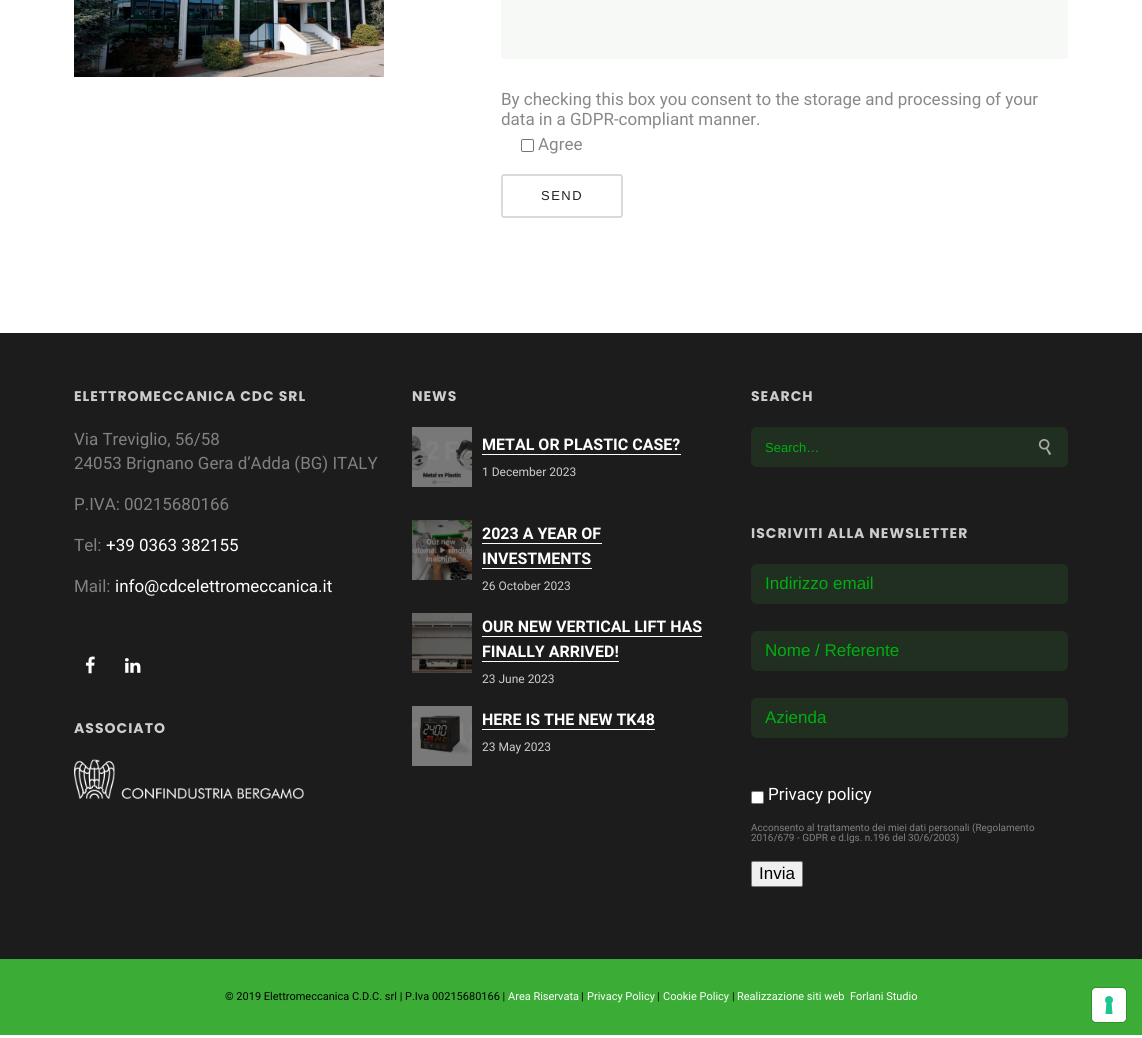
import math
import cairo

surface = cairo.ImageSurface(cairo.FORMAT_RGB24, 1142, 1038)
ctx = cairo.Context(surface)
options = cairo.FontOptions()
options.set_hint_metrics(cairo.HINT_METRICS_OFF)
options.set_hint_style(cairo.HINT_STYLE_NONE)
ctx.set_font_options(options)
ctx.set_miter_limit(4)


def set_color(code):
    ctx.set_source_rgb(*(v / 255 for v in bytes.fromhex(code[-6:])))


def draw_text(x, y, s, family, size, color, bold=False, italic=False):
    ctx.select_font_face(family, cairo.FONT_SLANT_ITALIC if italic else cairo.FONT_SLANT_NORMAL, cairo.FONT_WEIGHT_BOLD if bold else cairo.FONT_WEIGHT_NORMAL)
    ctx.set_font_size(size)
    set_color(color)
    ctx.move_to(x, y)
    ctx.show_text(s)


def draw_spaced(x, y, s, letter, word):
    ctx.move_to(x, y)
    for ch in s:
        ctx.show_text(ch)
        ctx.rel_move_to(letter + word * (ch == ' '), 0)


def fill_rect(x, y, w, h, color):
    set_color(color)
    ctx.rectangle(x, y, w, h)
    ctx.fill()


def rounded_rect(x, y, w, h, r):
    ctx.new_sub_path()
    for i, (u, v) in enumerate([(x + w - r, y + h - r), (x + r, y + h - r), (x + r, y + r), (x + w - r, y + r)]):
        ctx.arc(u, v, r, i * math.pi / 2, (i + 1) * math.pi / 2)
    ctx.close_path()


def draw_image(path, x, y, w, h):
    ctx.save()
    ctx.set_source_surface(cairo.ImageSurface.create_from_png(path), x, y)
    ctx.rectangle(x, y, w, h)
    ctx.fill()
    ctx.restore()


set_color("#ffffff")
ctx.paint()
draw_image("assets/img1.png", 74, 0, 310, 77)
set_color("#f7f9f6")
rounded_rect(501, -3, 567, 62, 3)
ctx.fill()
draw_text(501, 105, "By checking this box you consent to the storage and processing of your", "Roboto", 17, "#888888")
draw_text(501, 125, "data in a GDPR-compliant manner.", "Roboto", 17, "#888888")
rounded_rect(521.5, 139.5, 12, 12, 1.5)
set_color("#767676")
ctx.set_line_width(1)
ctx.stroke()
draw_text(538, 150, "Agree", "Roboto", 17, "#888888")
rounded_rect(502, 175, 120, 42, 2)
set_color("#dadada")
ctx.set_line_width(2)
ctx.stroke()
ctx.select_font_face("Liberation Sans")
ctx.set_font_size(13)
set_color("#222222")
draw_spaced(541, 200, "SEND", 1.5, 0)
fill_rect(0, 333, 1142, 626, "#1c1c1c")
ctx.select_font_face("Poppins", cairo.FONT_SLANT_NORMAL, cairo.FONT_WEIGHT_BOLD)
ctx.set_font_size(14)
set_color("#cdcdcd")
draw_spaced(74, 401, "ELETTROMECCANICA CDC SRL", 1, 0)
draw_text(74, 445, "Via Treviglio, 56/58", "Roboto", 17, "#818181")
draw_text(74, 469, "24053 Brignano Gera d’Adda (BG) ITALY", "Roboto", 17, "#818181")
draw_text(74, 510, "P.IVA: 00215680166", "Roboto", 17, "#818181")
draw_text(74, 551, "Tel:", "Roboto", 17, "#818181")
draw_text(106, 551, "+39 0363 382155", "Roboto", 17, "#ffffff")
draw_text(74, 592, "Mail:", "Roboto", 17, "#818181")
draw_text(115, 592, "info@cdcelettromeccanica.it", "Roboto", 17, "#ffffff")
draw_image("assets/img2.png", 85, 656, 10, 18)
draw_image("assets/img3.png", 125, 658, 16, 15)
ctx.select_font_face("Poppins", cairo.FONT_SLANT_NORMAL, cairo.FONT_WEIGHT_BOLD)
ctx.set_font_size(14)
set_color("#cdcdcd")
draw_spaced(74, 733, "ASSOCIATO", 1, 0)
draw_image("assets/img4.png", 74, 759, 230, 40)
draw_spaced(412, 401, "NEWS", 1, 0)
draw_image("assets/img5.png", 412, 427, 60, 60)
draw_text(482, 450, "METAL OR PLASTIC CASE?", "Roboto", 16, "#ffffff", bold=True)
fill_rect(482, 454, 199, 1, "#ffffff")
draw_text(482, 476, "1 December 2023", "Roboto", 12, "#cdcdcd")
draw_image("assets/img6.png", 412, 520, 60, 60)
draw_text(482, 539, "2023 A YEAR OF", "Roboto", 16, "#ffffff", bold=True)
fill_rect(482, 543, 120, 1, "#ffffff")
draw_text(482, 564, "INVESTMENTS", "Roboto", 16, "#ffffff", bold=True)
fill_rect(482, 568, 110, 1, "#ffffff")
draw_text(482, 590, "26 October 2023", "Roboto", 12, "#cdcdcd")
draw_image("assets/img7.png", 412, 613, 60, 60)
draw_text(482, 632, "OUR NEW VERTICAL LIFT HAS", "Roboto", 16, "#ffffff", bold=True)
fill_rect(482, 636, 220, 1, "#ffffff")
draw_text(482, 657, "FINALLY ARRIVED!", "Roboto", 16, "#ffffff", bold=True)
fill_rect(482, 661, 137, 1, "#ffffff")
draw_text(482, 683, "23 June 2023", "Roboto", 12, "#cdcdcd")
draw_image("assets/img8.png", 412, 706, 60, 60)
draw_text(482, 725, "HERE IS THE NEW TK48", "Roboto", 16, "#ffffff", bold=True)
fill_rect(482, 729, 173, 1, "#ffffff")
draw_text(482, 751, "23 May 2023", "Roboto", 12, "#cdcdcd")
ctx.select_font_face("Poppins", cairo.FONT_SLANT_NORMAL, cairo.FONT_WEIGHT_BOLD)
ctx.set_font_size(14)
draw_spaced(751, 401, "SEARCH", 1, 0)
set_color("#202f1f")
rounded_rect(751, 427, 317, 40, 6)
ctx.fill()
draw_text(765, 452, "Search…", "Liberation Sans", 13, "#00ae12")
draw_image("assets/img9.png", 1038, 439, 13, 16)
ctx.select_font_face("Poppins", cairo.FONT_SLANT_NORMAL, cairo.FONT_WEIGHT_BOLD)
ctx.set_font_size(14)
set_color("#cdcdcd")
draw_spaced(751, 538, "ISCRIVITI ALLA NEWSLETTER", 1, 0)
set_color("#202f1f")
rounded_rect(751, 564, 317, 40, 6)
ctx.fill()
draw_text(765, 589, "Indirizzo email", "Liberation Sans", 17, "#00ae12")
set_color("#202f1f")
rounded_rect(751, 631, 317, 40, 6)
ctx.fill()
draw_text(765, 656, "Nome / Referente", "Liberation Sans", 17, "#00ae12")
set_color("#202f1f")
rounded_rect(751, 698, 317, 40, 6)
ctx.fill()
draw_text(765, 723, "Azienda", "Liberation Sans", 17, "#00ae12")
set_color("#ffffff")
rounded_rect(751.5, 791.5, 12, 12, 1.5)
ctx.fill_preserve()
set_color("#767676")
ctx.set_line_width(1)
ctx.stroke()
draw_text(768, 800, "Privacy policy", "Roboto", 17, "#ffffff")
draw_text(751, 831, "Acconsento al trattamento dei miei dati personali (Regolamento", "Roboto", 10, "#818181")
draw_text(751, 841, "2016/679 - GDPR e d.lgs. n.196 del 30/6/2003)", "Roboto", 10, "#818181")
set_color("#efefef")
rounded_rect(751.5, 861.5, 51, 25, 1.5)
ctx.fill_preserve()
set_color("#767676")
ctx.stroke()
draw_text(759, 879, "Invia", "Liberation Sans", 17, "#000000")
fill_rect(0, 959, 1142, 76, "#3bad36")
draw_text(225, 1000, "© 2019 Elettromeccanica C.D.C. srl | P.Iva 00215680166 |", "Roboto", 11, "#000000")
draw_text(508, 1000, "Area Riservata", "Roboto", 11, "#ffffff")
draw_text(581, 1000, "|", "Roboto", 11, "#000000")
draw_text(587, 1000, "Privacy Policy", "Roboto", 11, "#ffffff")
draw_text(657, 1000, "|", "Roboto", 11, "#000000")
draw_text(663, 1000, "Cookie Policy", "Roboto", 11, "#ffffff")
draw_text(732, 1000, "|", "Roboto", 11, "#000000")
draw_text(737, 1000, "Realizzazione siti web", "Roboto", 11, "#ffffff")
draw_text(850, 1000, "Forlani Studio", "Roboto", 11, "#ffffff")
rounded_rect(1091.5, 987.5, 35, 35, 4.5)
set_color("#32932e")
ctx.stroke()
set_color("#ffffff")
rounded_rect(1092, 988, 34, 34, 4)
ctx.fill()
draw_image("assets/img10.png", 1105, 996, 8, 18)
surface.write_to_png("output.png")
